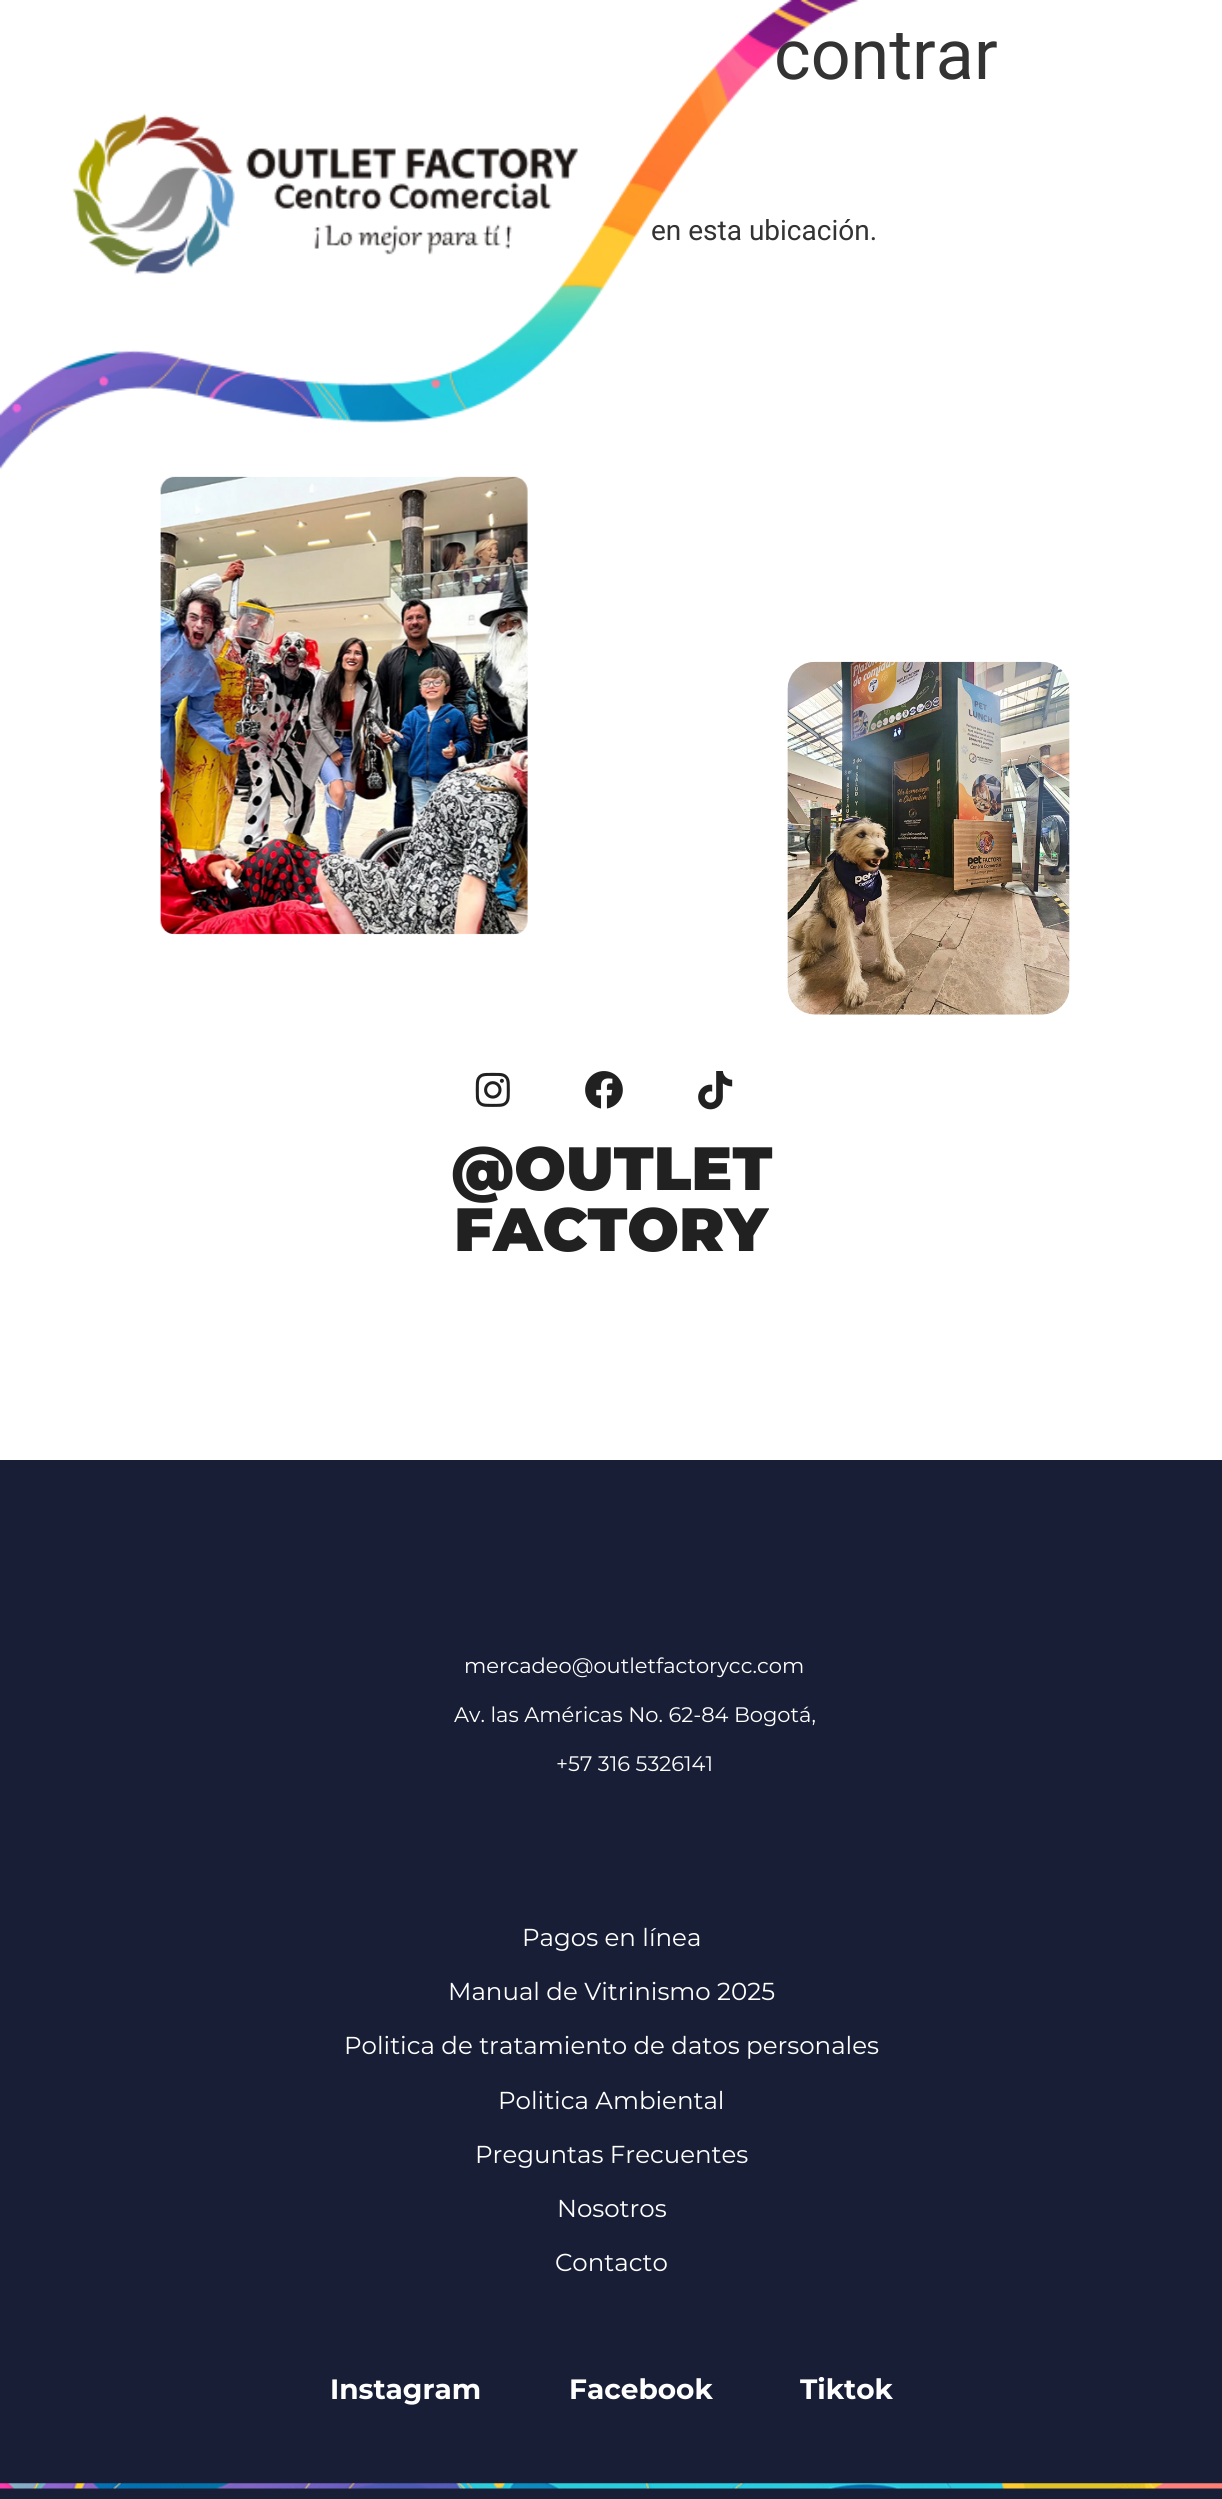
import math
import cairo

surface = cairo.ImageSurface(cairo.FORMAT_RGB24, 1222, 2499)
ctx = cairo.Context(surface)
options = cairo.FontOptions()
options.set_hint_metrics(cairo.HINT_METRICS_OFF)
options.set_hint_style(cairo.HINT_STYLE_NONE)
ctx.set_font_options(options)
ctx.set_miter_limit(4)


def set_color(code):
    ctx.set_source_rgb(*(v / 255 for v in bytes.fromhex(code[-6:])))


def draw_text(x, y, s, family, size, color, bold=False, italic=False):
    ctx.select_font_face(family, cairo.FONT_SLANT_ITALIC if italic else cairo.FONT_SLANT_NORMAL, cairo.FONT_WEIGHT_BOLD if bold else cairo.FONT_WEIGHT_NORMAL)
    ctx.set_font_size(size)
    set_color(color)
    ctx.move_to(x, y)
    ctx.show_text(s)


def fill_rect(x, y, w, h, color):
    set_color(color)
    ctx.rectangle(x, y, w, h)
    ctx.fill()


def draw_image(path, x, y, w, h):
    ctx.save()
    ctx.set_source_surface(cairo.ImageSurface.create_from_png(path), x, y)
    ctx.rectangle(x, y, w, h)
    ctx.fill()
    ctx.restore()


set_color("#ffffff")
ctx.paint()
draw_text(774, 79, "contrar", "Roboto", 70, "#333333")
draw_text(651, 240, "en esta ubicación.", "Roboto", 28, "#333333")
draw_image("assets/img1.png", 0, 0, 860, 470)
draw_image("assets/img2.png", 160, 476, 368, 459)
draw_image("assets/img3.png", 787, 661, 283, 354)
draw_image("assets/img4.png", 475, 1072, 35, 35)
draw_image("assets/img5.png", 585, 1071, 38, 38)
draw_image("assets/img6.png", 698, 1071, 35, 39)
draw_text(451, 1190, "@OUTLET", "Montserrat Black", 61, "#212121")
draw_text(454, 1251, "FACTORY", "Montserrat Black", 61, "#212121")
fill_rect(0, 1460, 1222, 1039, "#191e37")
draw_text(464, 1673, "mercadeo@outletfactorycc.com", "Montserrat", 21, "#ffffff")
draw_text(454, 1722, "Av. las Américas No. 62-84 Bogotá,", "Montserrat", 21, "#ffffff")
draw_text(556, 1771, "+57 316 5326141", "Montserrat", 21, "#ffffff")
draw_text(522, 1946, "Pagos en línea", "Montserrat", 24.5, "#ffffff")
draw_text(448, 2000, "Manual de Vitrinismo 2025", "Montserrat", 24.5, "#ffffff")
draw_text(344, 2054, "Politica de tratamiento de datos personales", "Montserrat", 24.5, "#ffffff")
draw_text(498, 2109, "Politica Ambiental", "Montserrat", 24.5, "#ffffff")
draw_text(475, 2163, "Preguntas Frecuentes", "Montserrat", 24.5, "#ffffff")
draw_text(557, 2217, "Nosotros", "Montserrat", 24.5, "#ffffff")
draw_text(555, 2271, "Contacto", "Montserrat", 24.5, "#ffffff")
draw_text(330, 2399, "Instagram", "Montserrat", 28, "#ffffff", bold=True)
draw_text(569, 2399, "Facebook", "Montserrat", 28, "#ffffff", bold=True)
draw_text(800, 2399, "Tiktok", "Montserrat", 28, "#ffffff", bold=True)
draw_image("assets/img7.png", 0, 2483, 1222, 6)
surface.write_to_png("output.png")
